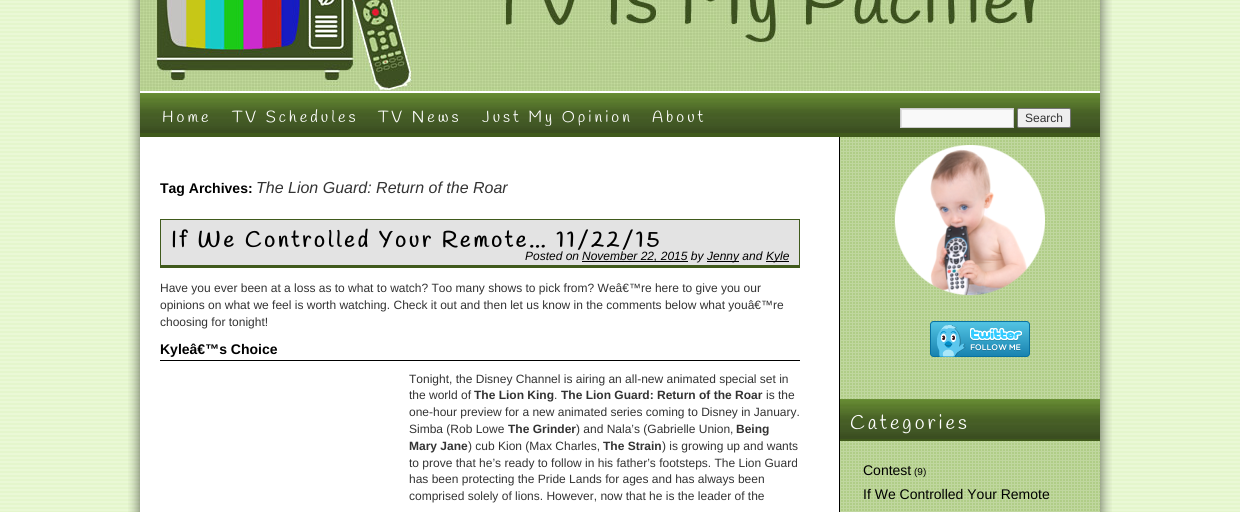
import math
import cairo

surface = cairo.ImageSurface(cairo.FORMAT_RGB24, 1240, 512)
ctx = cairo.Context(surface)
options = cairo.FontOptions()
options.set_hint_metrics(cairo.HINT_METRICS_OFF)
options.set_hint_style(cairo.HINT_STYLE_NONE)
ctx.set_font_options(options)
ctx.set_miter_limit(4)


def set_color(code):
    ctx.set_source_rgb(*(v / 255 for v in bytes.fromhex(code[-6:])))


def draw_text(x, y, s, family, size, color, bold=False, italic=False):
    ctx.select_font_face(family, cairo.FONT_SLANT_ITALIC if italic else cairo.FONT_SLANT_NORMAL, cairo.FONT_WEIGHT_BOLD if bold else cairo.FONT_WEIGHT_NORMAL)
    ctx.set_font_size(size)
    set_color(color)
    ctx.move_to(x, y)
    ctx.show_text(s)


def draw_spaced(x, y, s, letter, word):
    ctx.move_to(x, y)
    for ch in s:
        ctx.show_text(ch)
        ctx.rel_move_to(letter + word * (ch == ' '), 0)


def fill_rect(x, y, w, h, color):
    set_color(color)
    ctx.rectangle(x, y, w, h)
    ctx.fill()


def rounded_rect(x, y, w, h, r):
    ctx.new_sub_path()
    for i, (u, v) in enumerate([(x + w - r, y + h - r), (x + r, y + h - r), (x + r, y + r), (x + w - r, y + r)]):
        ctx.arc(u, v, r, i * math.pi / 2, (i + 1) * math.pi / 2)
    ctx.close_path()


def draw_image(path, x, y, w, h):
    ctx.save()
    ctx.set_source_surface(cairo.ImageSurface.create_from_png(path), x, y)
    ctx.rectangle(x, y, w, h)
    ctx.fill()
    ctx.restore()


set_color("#ffffff")
ctx.paint()
draw_image("assets/img1.png", 0, 0, 1240, 512)
draw_image("assets/img2.png", 128, 0, 984, 512)
fill_rect(839, 91, 261, 2, "#ffffff")
draw_image("assets/img3.png", 140, 0, 960, 91)
fill_rect(140, 133, 960, 4, "#405a1c")
draw_image("assets/img4.png", 140, 93, 960, 40)
ctx.select_font_face("Handlee")
ctx.set_font_size(16)
set_color("#ffffff")
draw_spaced(162, 122, "Home", 3, 0)
draw_spaced(232, 122, "TV Schedules", 3, 0)
draw_spaced(378, 122, "TV News", 3, 0)
draw_spaced(482, 122, "Just My Opinion", 3, 0)
draw_spaced(652, 122, "About", 3, 0)
fill_rect(902, 110, 111, 17, "#f9f9f9")
ctx.save()
ctx.rectangle(901, 109, 112, 18)
ctx.clip()
set_color("#e0e0e0")
ctx.set_fill_rule(cairo.FILL_RULE_EVEN_ODD)
ctx.new_path()
ctx.move_to(802, 10)
ctx.line_to(1112, 10)
ctx.line_to(1112, 226)
ctx.line_to(802, 226)
ctx.close_path()
ctx.move_to(902, 110)
ctx.line_to(1014, 110)
ctx.line_to(1014, 128)
ctx.line_to(902, 128)
ctx.close_path()
ctx.fill()
ctx.restore()
ctx.rectangle(900.5, 108.5, 113, 19)
set_color("#cccccc")
ctx.set_line_width(1)
ctx.stroke()
set_color("#efefef")
rounded_rect(1017.5, 108.5, 53, 19, 1.5)
ctx.fill_preserve()
set_color("#767676")
ctx.stroke()
draw_text(1025, 122, "Search", "Liberation Sans", 12, "#333333")
draw_text(160, 193, "Tag Archives:", "Liberation Sans", 14, "#000000", bold=True)
draw_text(256, 193, "The Lion Guard: Return of the Roar", "Liberation Sans", 16, "#333333", italic=True)
fill_rect(161, 220, 638, 45, "#e3e3e3")
fill_rect(160, 219, 640, 1, "#405a1c")
fill_rect(799, 219, 1, 49, "#405a1c")
fill_rect(160, 265, 640, 3, "#405a1c")
fill_rect(160, 219, 1, 49, "#405a1c")
ctx.select_font_face("Handlee", cairo.FONT_SLANT_NORMAL, cairo.FONT_WEIGHT_BOLD)
ctx.set_font_size(22)
set_color("#000000")
draw_spaced(171, 247, "If We Controlled Your Remote… 11/22/15", 3, 0)
draw_text(525, 260, "Posted on", "Liberation Sans", 12, "#000000", italic=True)
fill_rect(582, 261, 106, 1, "#000000")
draw_text(582, 260, "November 22, 2015 by", "Liberation Sans", 12, "#000000", italic=True)
fill_rect(707, 261, 32, 1, "#000000")
draw_text(707, 260, "Jenny and", "Liberation Sans", 12, "#000000", italic=True)
fill_rect(766, 261, 23, 1, "#000000")
draw_text(766, 260, "Kyle", "Liberation Sans", 12, "#000000", italic=True)
draw_text(160, 292, "Have you ever been at a loss as to what to watch? Too many shows to pick from? Weâ€™re here to give you our", "Liberation Sans", 12, "#333333")
draw_text(160, 309, "opinions on what we feel is worth watching. Check it out and then let us know in the comments below what youâ€™re", "Liberation Sans", 12, "#333333")
draw_text(160, 326, "choosing for tonight!", "Liberation Sans", 12, "#333333")
fill_rect(160, 360, 640, 1, "#000000")
draw_text(160, 354, "Kyleâ€™s Choice", "Liberation Sans", 14, "#000000", bold=True)
draw_text(409, 383, "Tonight, the Disney Channel is airing an all-new animated special set in", "Liberation Sans", 12, "#333333")
draw_text(409, 399, "the world of", "Liberation Sans", 12, "#333333")
draw_text(474, 399, "The Lion King", "Liberation Sans", 12, "#333333", bold=True)
draw_text(554, 399, ".", "Liberation Sans", 12, "#333333")
draw_text(561, 399, "The Lion Guard: Return of the Roar", "Liberation Sans", 12, "#333333", bold=True)
draw_text(766, 399, "is the", "Liberation Sans", 12, "#333333")
draw_text(409, 416, "one-hour preview for a new animated series coming to Disney in January.", "Liberation Sans", 12, "#333333")
draw_text(409, 433, "Simba (Rob Lowe", "Liberation Sans", 12, "#333333")
draw_text(508, 433, "The Grinder", "Liberation Sans", 12, "#333333", bold=True)
draw_text(576, 433, ") and Nala’s (Gabrielle Union,", "Liberation Sans", 12, "#333333")
draw_text(736, 433, "Being", "Liberation Sans", 12, "#333333", bold=True)
draw_text(409, 450, "Mary Jane", "Liberation Sans", 12, "#333333", bold=True)
draw_text(468, 450, ") cub Kion (Max Charles,", "Liberation Sans", 12, "#333333")
draw_text(603, 450, "The Strain", "Liberation Sans", 12, "#333333", bold=True)
draw_text(662, 450, ") is growing up and wants", "Liberation Sans", 12, "#333333")
draw_text(409, 467, "to prove that he’s ready to follow in his father’s footsteps. The Lion Guard", "Liberation Sans", 12, "#333333")
draw_text(409, 483, "has been protecting the Pride Lands for ages and has always been", "Liberation Sans", 12, "#333333")
draw_text(409, 500, "comprised solely of lions. However, now that he is the leader of the", "Liberation Sans", 12, "#333333")
draw_image("assets/img5.png", 895, 145, 150, 150)
draw_image("assets/img6.png", 930, 321, 100, 36)
fill_rect(840, 439, 260, 2, "#405a1c")
draw_image("assets/img7.png", 840, 399, 260, 40)
ctx.select_font_face("Handlee")
ctx.set_font_size(20)
set_color("#ffffff")
draw_spaced(850, 429, "Categories", 3, 0)
draw_text(863, 475, "Contest", "Liberation Sans", 14, "#000000")
draw_text(914, 475, "(9)", "Liberation Sans", 10, "#000000")
draw_text(863, 499, "If We Controlled Your Remote", "Liberation Sans", 14, "#000000")
surface.write_to_png("output.png")
